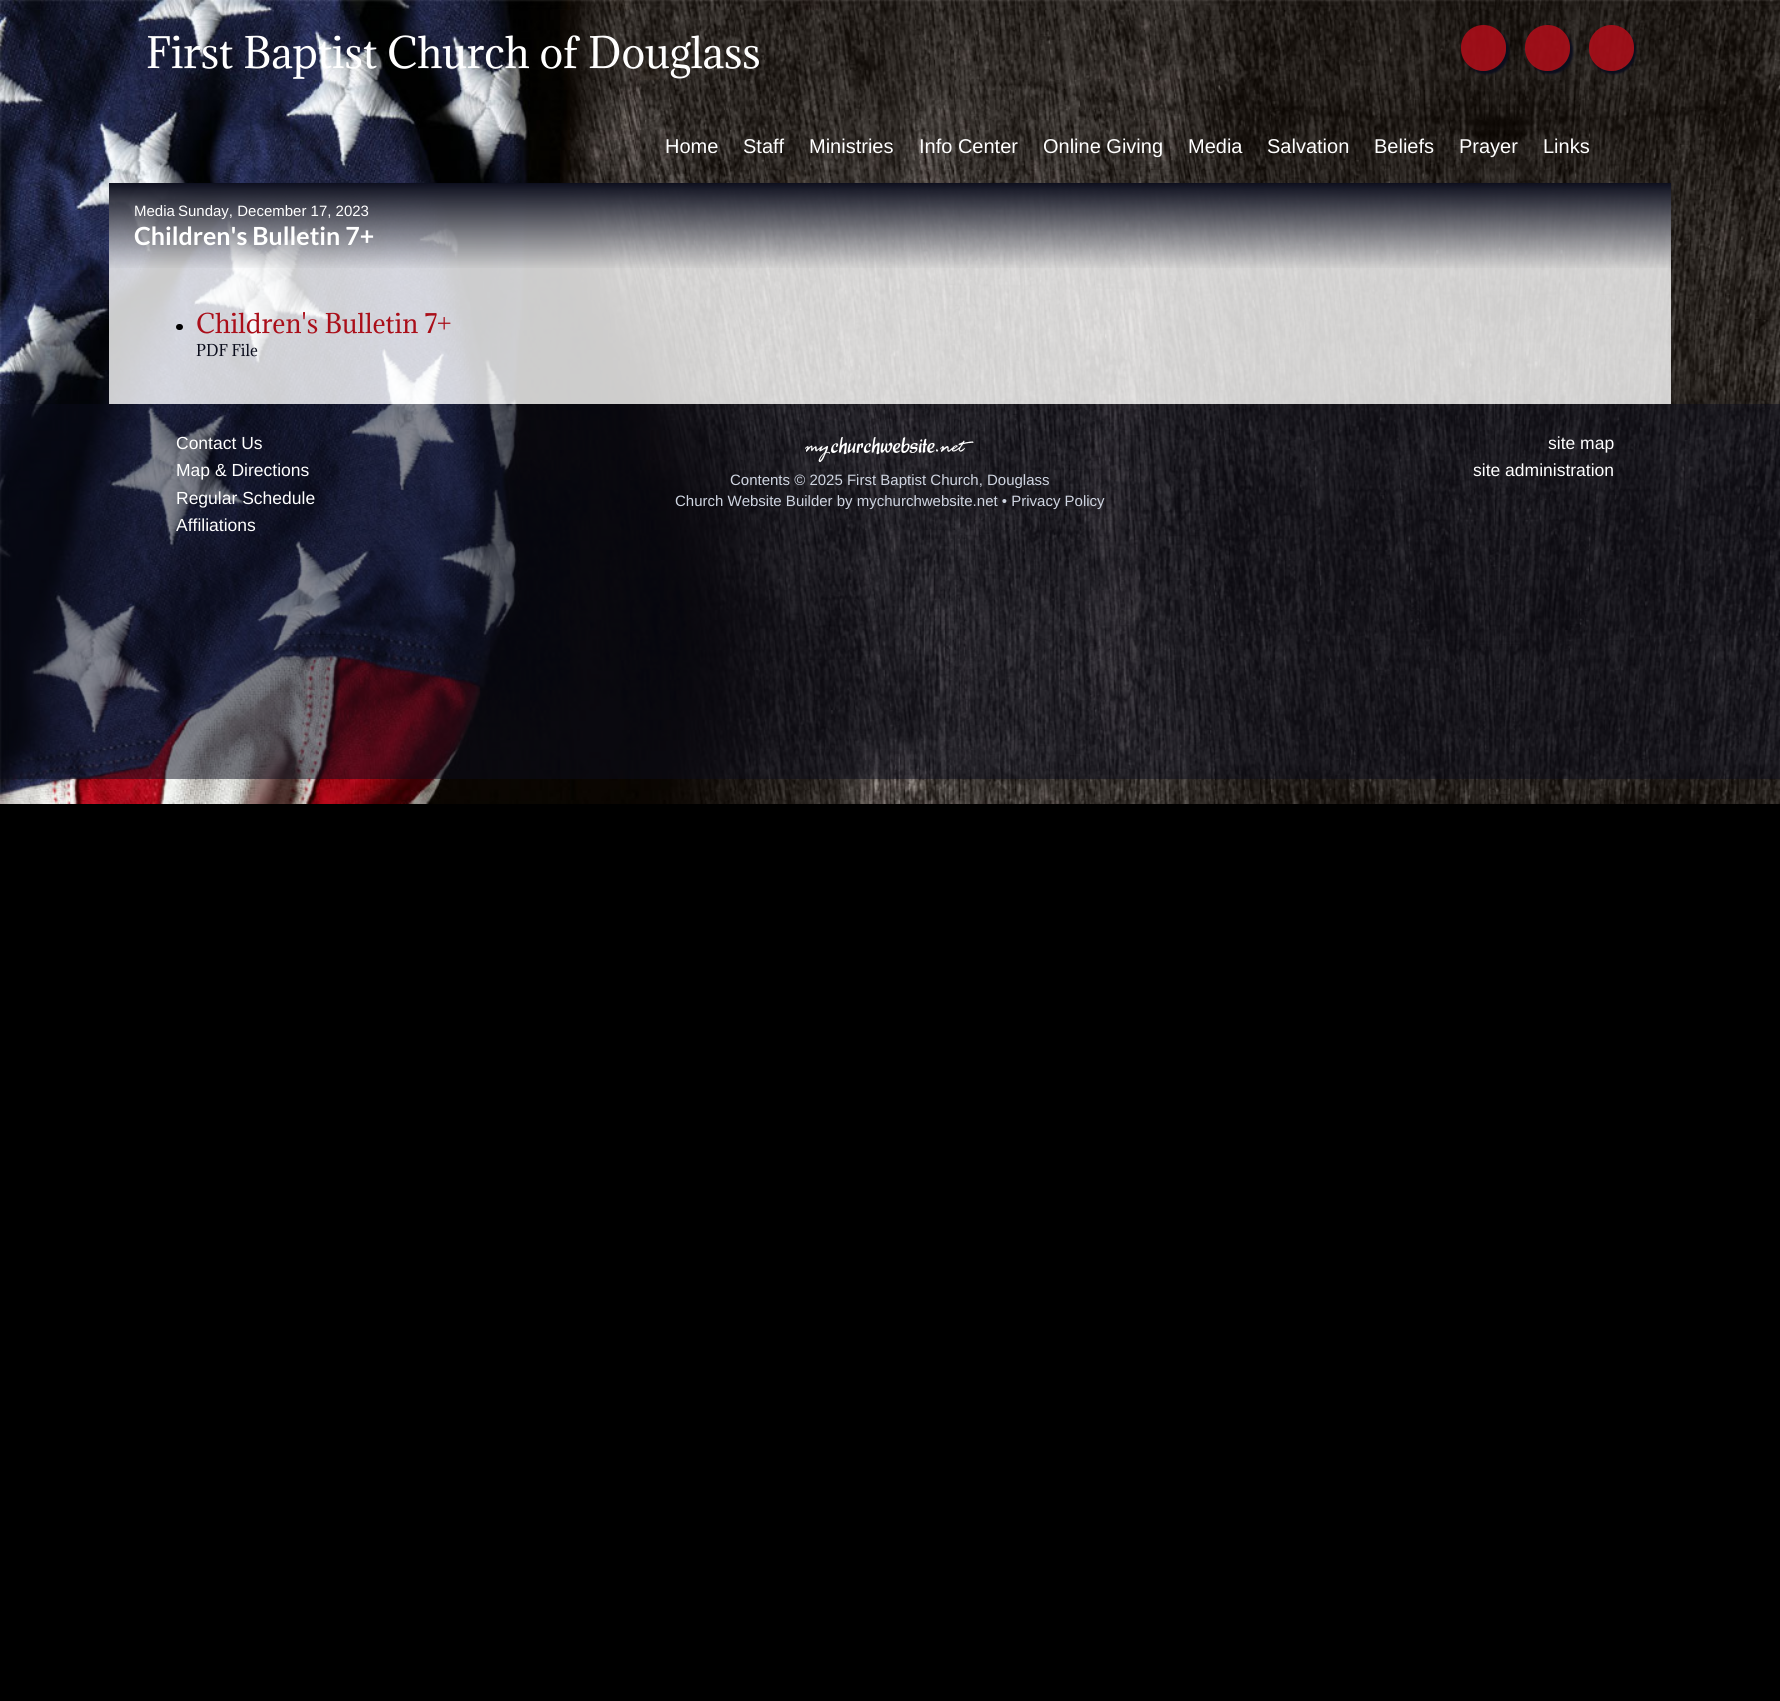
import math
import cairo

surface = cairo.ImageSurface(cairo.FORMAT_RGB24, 1780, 1701)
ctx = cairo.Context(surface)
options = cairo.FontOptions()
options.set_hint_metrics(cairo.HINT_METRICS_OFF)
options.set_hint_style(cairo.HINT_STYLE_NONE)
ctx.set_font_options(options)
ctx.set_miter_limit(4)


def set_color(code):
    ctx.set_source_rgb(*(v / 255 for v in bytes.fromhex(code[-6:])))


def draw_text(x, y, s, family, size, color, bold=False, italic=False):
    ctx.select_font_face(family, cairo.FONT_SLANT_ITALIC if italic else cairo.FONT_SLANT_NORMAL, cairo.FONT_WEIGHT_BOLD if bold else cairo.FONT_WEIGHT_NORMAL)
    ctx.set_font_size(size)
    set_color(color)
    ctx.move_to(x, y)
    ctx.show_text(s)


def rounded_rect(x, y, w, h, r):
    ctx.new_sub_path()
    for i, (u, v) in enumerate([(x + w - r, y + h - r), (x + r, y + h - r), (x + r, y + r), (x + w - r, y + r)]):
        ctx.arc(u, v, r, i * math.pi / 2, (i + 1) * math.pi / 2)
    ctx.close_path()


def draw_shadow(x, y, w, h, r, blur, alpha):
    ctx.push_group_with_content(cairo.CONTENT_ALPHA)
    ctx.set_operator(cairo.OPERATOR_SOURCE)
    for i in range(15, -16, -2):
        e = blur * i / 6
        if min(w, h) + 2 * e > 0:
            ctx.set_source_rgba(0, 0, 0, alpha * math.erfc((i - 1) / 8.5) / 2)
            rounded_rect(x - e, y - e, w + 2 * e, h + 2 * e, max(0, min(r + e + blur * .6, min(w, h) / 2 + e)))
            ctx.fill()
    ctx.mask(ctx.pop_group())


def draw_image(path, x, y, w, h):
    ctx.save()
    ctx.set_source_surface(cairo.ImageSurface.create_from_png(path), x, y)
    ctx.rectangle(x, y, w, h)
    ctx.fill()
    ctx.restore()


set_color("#000000")
ctx.paint()
draw_image("assets/img1.png", 0, 0, 1780, 804)
draw_text(146, 68, "First Baptist Church of Douglass", "Adamina", 40, "#ffffff")
ctx.save()
ctx.set_fill_rule(cairo.FILL_RULE_EVEN_ODD)
ctx.new_path()
ctx.move_to(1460, 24)
ctx.line_to(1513, 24)
ctx.line_to(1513, 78)
ctx.line_to(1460, 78)
ctx.close_path()
ctx.move_to(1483.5, 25)
ctx.curve_to(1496, 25, 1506, 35, 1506, 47.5)
ctx.line_to(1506, 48.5)
ctx.curve_to(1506, 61, 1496, 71, 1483.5, 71)
ctx.curve_to(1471, 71, 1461, 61, 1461, 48.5)
ctx.line_to(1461, 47.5)
ctx.curve_to(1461, 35, 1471, 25, 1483.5, 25)
ctx.close_path()
ctx.clip()
set_color("#0b0d1c")
draw_shadow(1464, 28, 45, 46, 22.5, 1, 1)
ctx.restore()
ctx.set_source_rgba(0.667, 0.055, 0.098, 0.9)
rounded_rect(1461, 25, 45, 46, 22.5)
ctx.fill()
ctx.save()
ctx.set_fill_rule(cairo.FILL_RULE_EVEN_ODD)
ctx.new_path()
ctx.move_to(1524, 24)
ctx.line_to(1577, 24)
ctx.line_to(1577, 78)
ctx.line_to(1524, 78)
ctx.close_path()
ctx.move_to(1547.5, 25)
ctx.curve_to(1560, 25, 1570, 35, 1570, 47.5)
ctx.line_to(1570, 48.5)
ctx.curve_to(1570, 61, 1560, 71, 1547.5, 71)
ctx.curve_to(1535, 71, 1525, 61, 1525, 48.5)
ctx.line_to(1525, 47.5)
ctx.curve_to(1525, 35, 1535, 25, 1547.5, 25)
ctx.close_path()
ctx.clip()
set_color("#0b0d1c")
draw_shadow(1528, 28, 45, 46, 22.5, 1, 1)
ctx.restore()
rounded_rect(1525, 25, 45, 46, 22.5)
ctx.fill()
ctx.save()
ctx.set_fill_rule(cairo.FILL_RULE_EVEN_ODD)
ctx.new_path()
ctx.move_to(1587, 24)
ctx.line_to(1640, 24)
ctx.line_to(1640, 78)
ctx.line_to(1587, 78)
ctx.close_path()
ctx.move_to(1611.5, 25)
ctx.curve_to(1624, 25, 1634, 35, 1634, 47.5)
ctx.line_to(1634, 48.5)
ctx.curve_to(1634, 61, 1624, 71, 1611.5, 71)
ctx.curve_to(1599, 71, 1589, 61, 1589, 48.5)
ctx.line_to(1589, 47.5)
ctx.curve_to(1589, 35, 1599, 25, 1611.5, 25)
ctx.close_path()
ctx.clip()
set_color("#0b0d1c")
draw_shadow(1591, 28, 45, 46, 22.5, 1, 1)
ctx.restore()
rounded_rect(1589, 25, 45, 46, 22.5)
ctx.fill()
draw_text(665, 153, "Home", "Liberation Sans", 20, "#ffffff")
draw_text(743, 153, "Staff", "Liberation Sans", 20, "#ffffff")
draw_text(809, 153, "Ministries", "Liberation Sans", 20, "#ffffff")
draw_text(919, 153, "Info Center", "Liberation Sans", 20, "#ffffff")
draw_text(1043, 153, "Online Giving", "Liberation Sans", 20, "#ffffff")
draw_text(1188, 153, "Media", "Liberation Sans", 20, "#ffffff")
draw_text(1267, 153, "Salvation", "Liberation Sans", 20, "#ffffff")
draw_text(1374, 153, "Beliefs", "Liberation Sans", 20, "#ffffff")
draw_text(1459, 153, "Prayer", "Liberation Sans", 20, "#ffffff")
draw_text(1543, 153, "Links", "Liberation Sans", 20, "#ffffff")
ctx.set_source_rgba(1, 1, 1, 0.8)
ctx.rectangle(109, 183, 1562, 221)
ctx.fill()
gradient = cairo.LinearGradient(890, 182, 890, 269)
gradient.add_color_stop_rgba(0, 0.043, 0.051, 0.11, 1)
gradient.add_color_stop_rgba(1, 0.043, 0.051, 0.11, 0.01)
ctx.set_source(gradient)
ctx.rectangle(109, 183, 1562, 85)
ctx.fill()
draw_text(134, 216, "Media", "Liberation Sans", 15, "#ffffff")
draw_text(178, 216, "Sunday, December 17, 2023", "Liberation Sans", 15, "#ffffff")
draw_text(134, 245, "Children's Bulletin 7+", "Lato", 25, "#ffffff", bold=True)
set_color("#000000")
rounded_rect(176, 324, 7, 6, 3)
ctx.fill()
draw_text(196, 333, "Children's Bulletin 7+", "Adamina", 25, "#aa0e19")
draw_text(196, 356, "PDF File", "Adamina", 15, "#0b0d1c")
ctx.set_source_rgba(0.043, 0.051, 0.11, 0.5)
ctx.rectangle(0, 404, 1780, 375)
ctx.fill()
draw_text(176, 449, "Contact Us", "Liberation Sans", 17.5, "#ffffff")
draw_text(176, 476, "Map & Directions", "Liberation Sans", 17.5, "#ffffff")
draw_text(176, 504, "Regular Schedule", "Liberation Sans", 17.5, "#ffffff")
draw_text(176, 531, "Affiliations", "Liberation Sans", 17.5, "#ffffff")
draw_text(1548, 449, "site map", "Liberation Sans", 17.5, "#ffffff")
draw_text(1473, 476, "site administration", "Liberation Sans", 17.5, "#ffffff")
draw_image("assets/img2.png", 805, 437, 169, 26)
draw_text(730, 485, "Contents © 2025 First Baptist Church, Douglass", "Liberation Sans", 15, "#cfd5e1")
draw_text(675, 506, "Church Website Builder by mychurchwebsite.net • Privacy Policy", "Liberation Sans", 15, "#cfd5e1")
surface.write_to_png("output.png")
